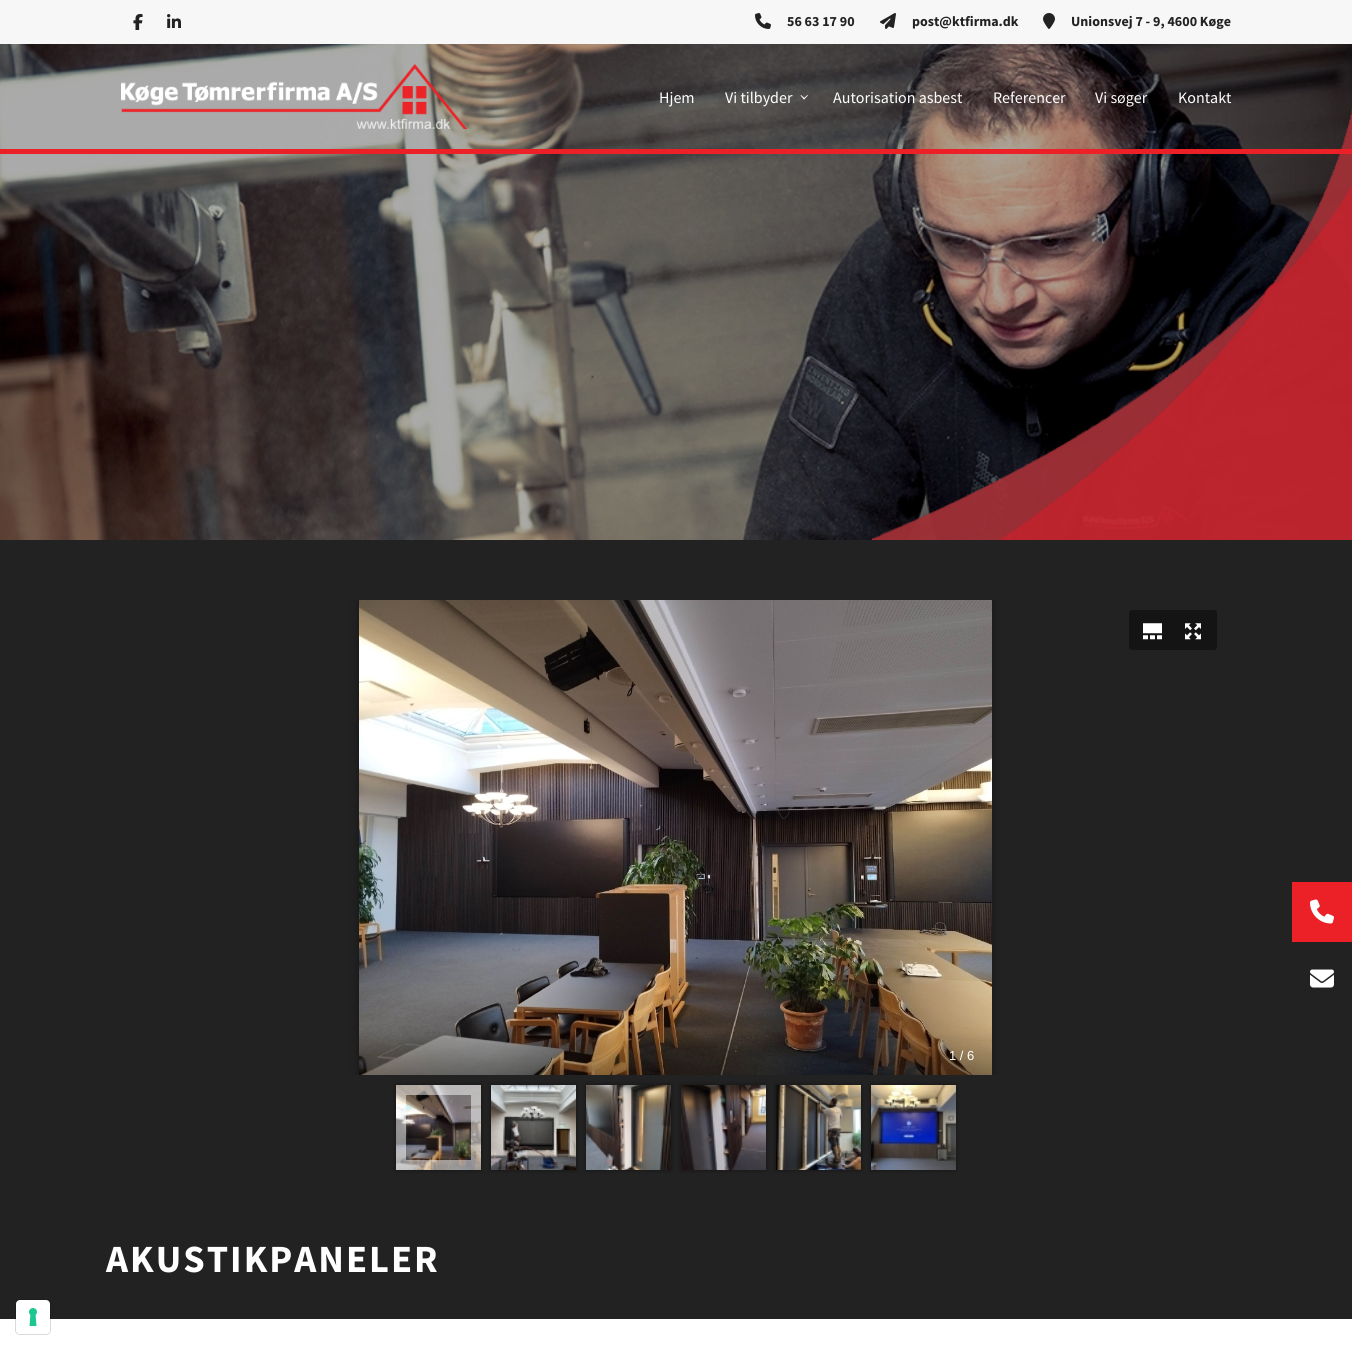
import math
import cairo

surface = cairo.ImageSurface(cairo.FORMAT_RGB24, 1352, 1350)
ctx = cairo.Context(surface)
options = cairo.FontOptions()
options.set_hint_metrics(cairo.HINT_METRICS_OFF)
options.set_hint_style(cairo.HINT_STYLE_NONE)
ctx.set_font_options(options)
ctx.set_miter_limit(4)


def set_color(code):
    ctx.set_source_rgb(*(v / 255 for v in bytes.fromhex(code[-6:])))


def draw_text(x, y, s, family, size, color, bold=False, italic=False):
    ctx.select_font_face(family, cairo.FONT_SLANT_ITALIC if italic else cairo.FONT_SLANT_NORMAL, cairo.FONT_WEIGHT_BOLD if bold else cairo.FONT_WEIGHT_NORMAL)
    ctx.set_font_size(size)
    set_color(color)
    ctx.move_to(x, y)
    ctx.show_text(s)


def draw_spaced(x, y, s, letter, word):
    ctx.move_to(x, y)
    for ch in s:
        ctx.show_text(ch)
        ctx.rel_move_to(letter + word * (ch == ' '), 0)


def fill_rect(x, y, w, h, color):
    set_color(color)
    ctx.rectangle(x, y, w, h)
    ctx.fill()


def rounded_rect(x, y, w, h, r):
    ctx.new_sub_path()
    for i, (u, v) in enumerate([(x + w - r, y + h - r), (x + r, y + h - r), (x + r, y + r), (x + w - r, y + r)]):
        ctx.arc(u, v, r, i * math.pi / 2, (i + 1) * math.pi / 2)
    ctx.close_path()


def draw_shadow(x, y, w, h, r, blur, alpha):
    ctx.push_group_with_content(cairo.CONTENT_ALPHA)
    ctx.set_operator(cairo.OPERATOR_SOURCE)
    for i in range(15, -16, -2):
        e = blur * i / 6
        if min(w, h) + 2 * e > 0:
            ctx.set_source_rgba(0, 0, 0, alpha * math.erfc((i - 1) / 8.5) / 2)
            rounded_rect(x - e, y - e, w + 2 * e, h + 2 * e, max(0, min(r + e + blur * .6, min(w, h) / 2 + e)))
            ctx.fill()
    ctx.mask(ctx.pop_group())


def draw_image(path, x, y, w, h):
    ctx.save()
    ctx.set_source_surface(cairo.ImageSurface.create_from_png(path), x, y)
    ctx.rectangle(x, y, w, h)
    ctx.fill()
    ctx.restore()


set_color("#ffffff")
ctx.paint()
fill_rect(0, 0, 1352, 44, "#f7f7f7")
draw_image("assets/img1.png", 133, 14, 10, 16)
draw_image("assets/img2.png", 167, 14, 14, 14)
draw_image("assets/img3.png", 755, 13, 16, 16)
draw_text(787, 26, "56 63 17 90", "Source Sans Pro", 14, "#222222", bold=True)
draw_image("assets/img4.png", 880, 13, 16, 16)
draw_text(912, 26, "post@ktfirma.dk", "Source Sans Pro", 14, "#222222", bold=True)
draw_image("assets/img5.png", 1043, 13, 12, 16)
draw_text(1071, 26, "Unionsvej 7 - 9, 4600 Køge", "Source Sans Pro", 14, "#222222", bold=True)
draw_image("assets/img7.png", 0, 44, 1352, 496)
draw_image("assets/img8.png", 872, 108, 480, 432)
fill_rect(0, 149, 1352, 5, "#eb2127")
draw_image("assets/img6.png", 121, 64, 346, 65)
draw_text(659, 103, "Hjem", "Source Sans Pro", 16, "#ffffff")
draw_text(725, 103, "Vi tilbyder", "Source Sans Pro", 16, "#ffffff")
ctx.new_path()
ctx.move_to(808, 95.5)
ctx.line_to(804, 99.5)
ctx.line_to(803.5, 98.5)
ctx.line_to(807.5, 95)
ctx.close_path()
ctx.fill()
ctx.new_path()
ctx.move_to(805, 98.5)
ctx.line_to(804, 99.5)
ctx.line_to(800.5, 95.5)
ctx.line_to(801, 95)
ctx.close_path()
ctx.fill()
draw_text(833, 103, "Autorisation asbest", "Source Sans Pro", 16, "#ffffff")
draw_text(993, 103, "Referencer", "Source Sans Pro", 16, "#ffffff")
draw_text(1095, 103, "Vi søger", "Source Sans Pro", 16, "#ffffff")
draw_text(1178, 103, "Kontakt", "Source Sans Pro", 16, "#ffffff")
fill_rect(0, 540, 1352, 779, "#222222")
fill_rect(1292, 882, 60, 60, "#eb2127")
draw_image("assets/img9.png", 1310, 899, 24, 25)
draw_image("assets/img10.png", 1310, 969, 24, 19)
ctx.save()
ctx.rectangle(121, 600, 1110, 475)
ctx.clip()
set_color("#000000")
draw_shadow(359, 600, 633, 475, 0, 5, 0.4)
ctx.restore()
draw_image("assets/img11.png", 359, 600, 633, 475)
set_color("#141414")
rounded_rect(1129, 610, 88, 40, 3)
ctx.fill()
draw_image("assets/img12.png", 1143, 623, 19, 17)
draw_image("assets/img13.png", 1185, 623, 16, 17)
draw_text(949, 1060, "1 / 6", "Liberation Sans", 13, "#ffffff")
set_color("#000000")
draw_shadow(396, 1085, 85, 85, 0, 2.5, 0.4)
draw_image("assets/img14.png", 396, 1085, 85, 85)
ctx.rectangle(401, 1090, 75, 75)
ctx.set_source_rgba(1, 1, 1, 0.5)
ctx.set_line_width(10)
ctx.stroke()
set_color("#000000")
draw_shadow(491, 1085, 85, 85, 0, 2.5, 0.4)
draw_image("assets/img15.png", 491, 1085, 85, 85)
draw_shadow(586, 1085, 85, 85, 0, 2.5, 0.4)
draw_image("assets/img16.png", 586, 1085, 85, 85)
draw_shadow(681, 1085, 85, 85, 0, 2.5, 0.4)
draw_image("assets/img17.png", 681, 1085, 85, 85)
draw_shadow(776, 1085, 85, 85, 0, 2.5, 0.4)
draw_image("assets/img18.png", 776, 1085, 85, 85)
draw_shadow(871, 1085, 85, 85, 0, 2.5, 0.4)
draw_image("assets/img19.png", 871, 1085, 85, 85)
ctx.select_font_face("Source Sans Pro", cairo.FONT_SLANT_NORMAL, cairo.FONT_WEIGHT_BOLD)
ctx.set_font_size(38.5)
set_color("#ffffff")
draw_spaced(106, 1272, "AKUSTIKPANELER", 2, 0)
rounded_rect(15.5, 1299.5, 35, 35, 4.5)
ctx.set_source_rgba(0, 0, 0, 0.15)
ctx.set_line_width(1)
ctx.stroke()
set_color("#ffffff")
rounded_rect(16, 1300, 34, 34, 4)
ctx.fill()
draw_image("assets/img20.png", 29, 1308, 8, 18)
surface.write_to_png("output.png")
